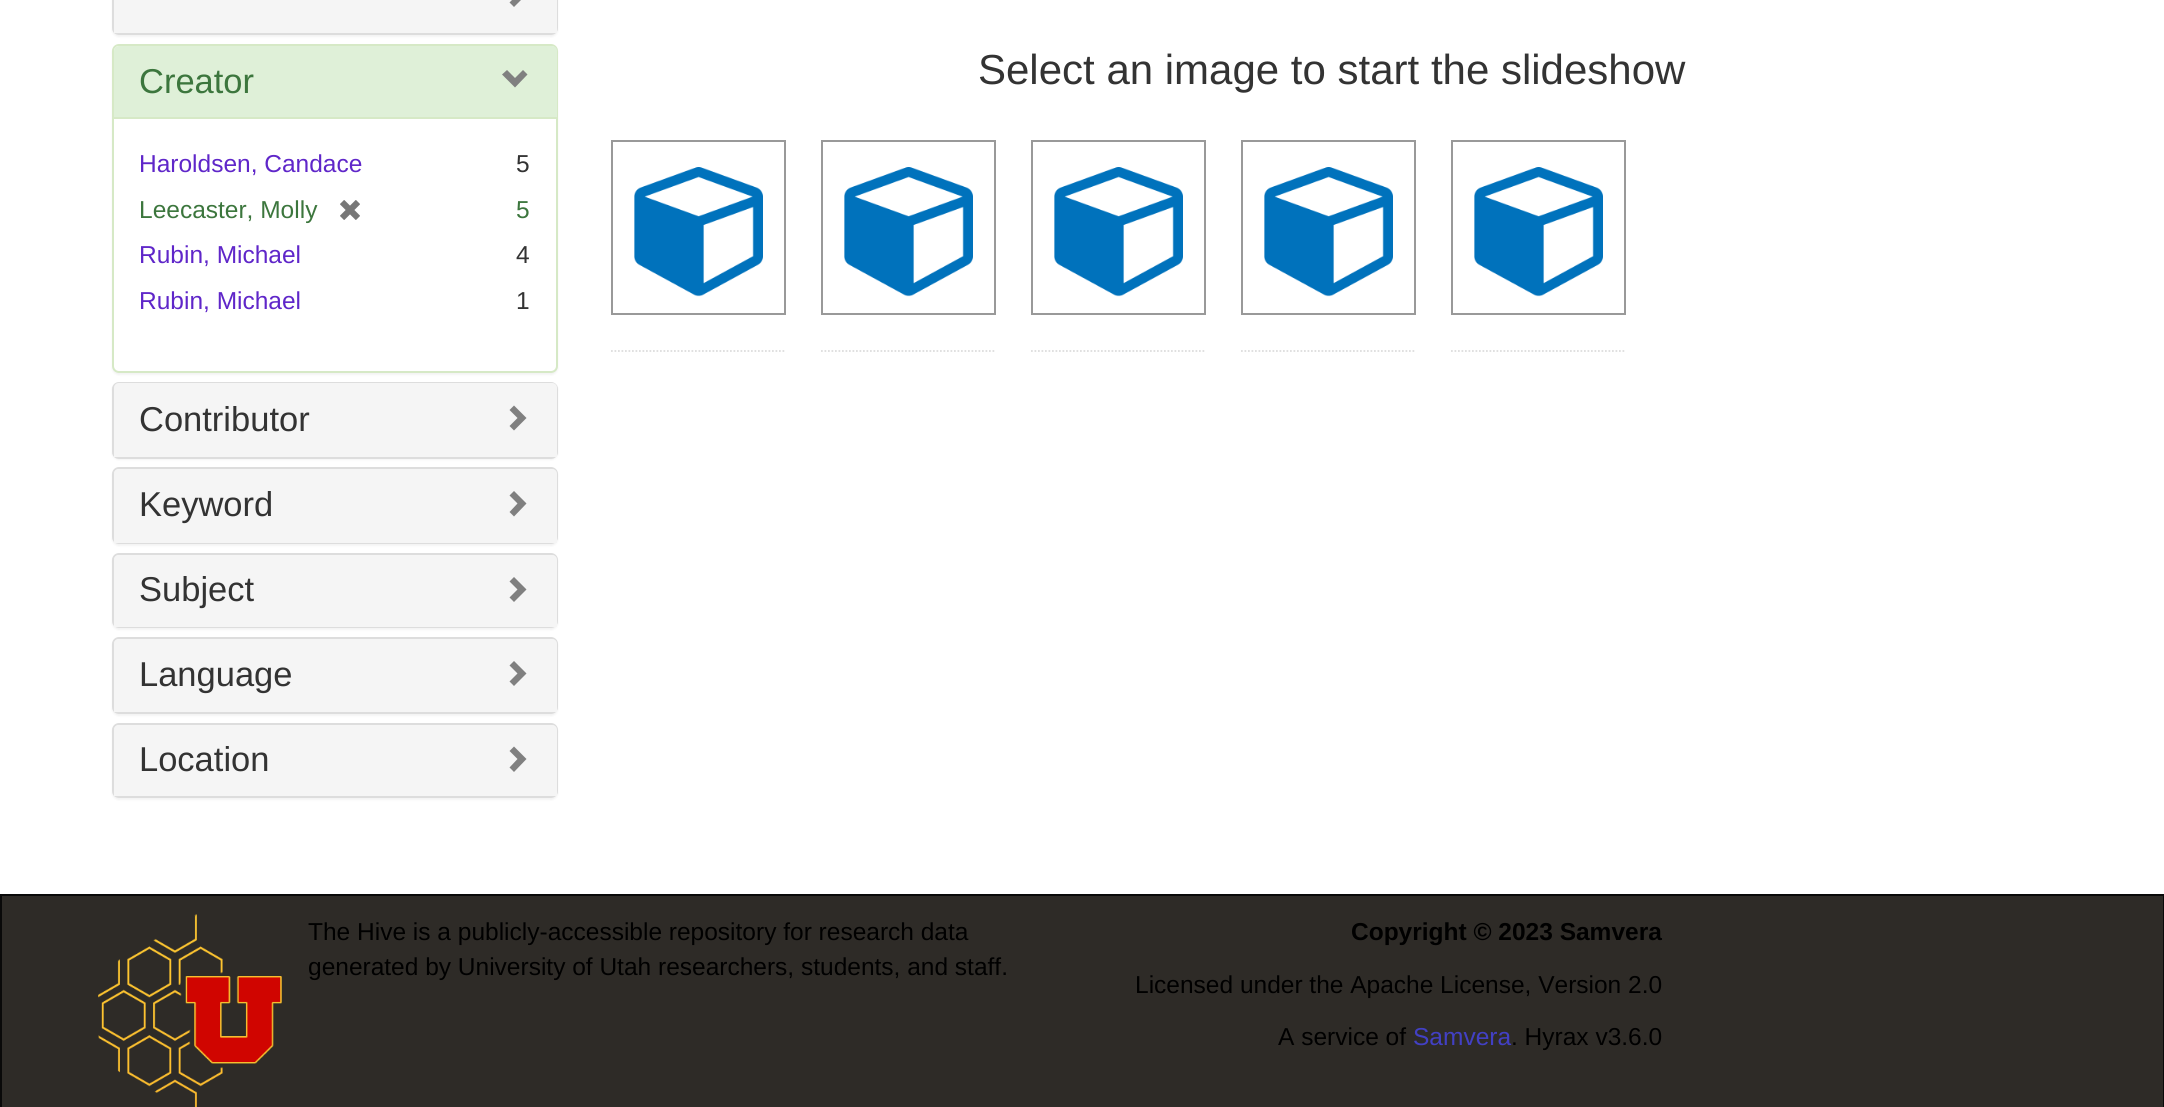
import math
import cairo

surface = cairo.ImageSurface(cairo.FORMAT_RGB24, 2164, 1107)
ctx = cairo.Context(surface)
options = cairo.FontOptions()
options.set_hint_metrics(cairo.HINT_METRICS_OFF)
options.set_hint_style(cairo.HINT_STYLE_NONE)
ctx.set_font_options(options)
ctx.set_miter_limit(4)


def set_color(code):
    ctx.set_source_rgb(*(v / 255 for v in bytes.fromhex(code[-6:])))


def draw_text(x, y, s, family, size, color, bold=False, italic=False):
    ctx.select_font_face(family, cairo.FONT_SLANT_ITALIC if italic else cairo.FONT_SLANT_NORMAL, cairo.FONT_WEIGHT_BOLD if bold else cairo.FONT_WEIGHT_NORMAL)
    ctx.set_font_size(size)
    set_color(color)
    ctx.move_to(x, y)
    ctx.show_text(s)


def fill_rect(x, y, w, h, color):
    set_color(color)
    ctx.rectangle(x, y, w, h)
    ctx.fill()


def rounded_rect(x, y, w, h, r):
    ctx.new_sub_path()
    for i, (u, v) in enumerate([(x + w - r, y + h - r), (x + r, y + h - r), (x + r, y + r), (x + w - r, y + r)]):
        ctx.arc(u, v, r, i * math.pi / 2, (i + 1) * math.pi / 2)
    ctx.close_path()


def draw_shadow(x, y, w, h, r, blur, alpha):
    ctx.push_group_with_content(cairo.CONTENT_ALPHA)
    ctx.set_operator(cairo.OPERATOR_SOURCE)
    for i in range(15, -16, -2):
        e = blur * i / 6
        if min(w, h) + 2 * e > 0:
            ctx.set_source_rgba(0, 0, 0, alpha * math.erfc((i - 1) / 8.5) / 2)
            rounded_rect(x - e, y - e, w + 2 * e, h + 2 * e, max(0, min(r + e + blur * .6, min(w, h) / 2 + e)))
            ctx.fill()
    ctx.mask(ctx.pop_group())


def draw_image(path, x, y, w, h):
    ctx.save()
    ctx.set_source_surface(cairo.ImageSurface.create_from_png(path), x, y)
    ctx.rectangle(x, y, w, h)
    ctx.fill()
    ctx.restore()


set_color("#ffffff")
ctx.paint()
set_color("#000000")
draw_shadow(112, -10, 446, 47, 7, 1, 0.05)
rounded_rect(113, -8, 444, 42, 6)
set_color("#dddddd")
ctx.stroke()
fill_rect(114, 0, 443, 33, "#f5f5f5")
set_color("#808080")
ctx.new_path()
ctx.move_to(526.5, -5.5)
ctx.line_to(514, 7)
ctx.line_to(509.5, 2.5)
ctx.line_to(517.5, -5.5)
ctx.line_to(509.5, -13.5)
ctx.line_to(514, -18)
ctx.close_path()
ctx.fill()
set_color("#000000")
draw_shadow(112, 46, 446, 329, 7, 1, 0.05)
set_color("#ffffff")
rounded_rect(113, 45, 444, 327, 6)
ctx.fill_preserve()
set_color("#d6e9c6")
ctx.stroke()
set_color("#dff0d8")
ctx.new_path()
ctx.move_to(119, 46)
ctx.line_to(552, 46)
ctx.curve_to(555, 46, 557, 48, 557, 51)
ctx.line_to(557, 117)
ctx.line_to(114, 117)
ctx.line_to(114, 51)
ctx.curve_to(114, 48, 116, 46, 119, 46)
ctx.close_path()
ctx.fill()
draw_text(139, 93, "Creator", "Liberation Sans", 34.5, "#3c763d")
set_color("#808080")
ctx.new_path()
ctx.move_to(527.5, 74.5)
ctx.line_to(515, 87.5)
ctx.line_to(502, 74.5)
ctx.line_to(507, 70)
ctx.line_to(515, 78)
ctx.line_to(523, 70)
ctx.close_path()
ctx.fill()
fill_rect(114, 117, 443, 2, "#d6e9c6")
draw_text(139, 172, "Haroldsen, Candace", "Liberation Sans", 24.5, "#5f26c9")
draw_text(516, 172, "5", "Liberation Sans", 24.5, "#333333")
draw_text(139, 218, "Leecaster, Molly", "Liberation Sans", 24.5, "#3c763d")
draw_image("assets/img1.png", 340, 200, 20, 20)
draw_text(516, 218, "5", "Liberation Sans", 24.5, "#3c763d")
draw_text(139, 263, "Rubin, Michael", "Liberation Sans", 24.5, "#5f26c9")
draw_text(516, 263, "4", "Liberation Sans", 24.5, "#333333")
draw_text(139, 309, "Rubin, Michael", "Liberation Sans", 24.5, "#5f26c9")
draw_text(516, 309, "1", "Liberation Sans", 24.5, "#333333")
set_color("#000000")
draw_shadow(112, 383, 446, 77, 7, 1, 0.05)
rounded_rect(113, 383, 444, 75, 6)
set_color("#dddddd")
ctx.stroke()
set_color("#f5f5f5")
ctx.new_path()
ctx.move_to(119, 383)
ctx.line_to(552, 383)
ctx.curve_to(555, 383, 557, 385, 557, 388)
ctx.line_to(557, 457)
ctx.line_to(114, 457)
ctx.line_to(114, 388)
ctx.curve_to(114, 385, 116, 383, 119, 383)
ctx.close_path()
ctx.fill()
draw_text(139, 431, "Contributor", "Liberation Sans", 34.5, "#333333")
set_color("#808080")
ctx.new_path()
ctx.move_to(526.5, 418)
ctx.line_to(514, 430.5)
ctx.line_to(509.5, 426)
ctx.line_to(517.5, 418)
ctx.line_to(509.5, 410)
ctx.line_to(514, 405.5)
ctx.close_path()
ctx.fill()
set_color("#000000")
draw_shadow(112, 469, 446, 77, 7, 1, 0.05)
rounded_rect(113, 468, 444, 75, 6)
set_color("#dddddd")
ctx.stroke()
set_color("#f5f5f5")
ctx.new_path()
ctx.move_to(119, 469)
ctx.line_to(552, 469)
ctx.curve_to(555, 469, 557, 471, 557, 474)
ctx.line_to(557, 543)
ctx.line_to(114, 543)
ctx.line_to(114, 474)
ctx.curve_to(114, 471, 116, 469, 119, 469)
ctx.close_path()
ctx.fill()
draw_text(139, 516, "Keyword", "Liberation Sans", 34.5, "#333333")
set_color("#808080")
ctx.new_path()
ctx.move_to(526.5, 503.5)
ctx.line_to(514, 516.5)
ctx.line_to(509.5, 512)
ctx.line_to(517.5, 503.5)
ctx.line_to(509.5, 495.5)
ctx.line_to(514, 491)
ctx.close_path()
ctx.fill()
set_color("#000000")
draw_shadow(112, 555, 446, 75, 7, 1, 0.05)
rounded_rect(113, 554, 444, 73, 6)
set_color("#dddddd")
ctx.stroke()
set_color("#f5f5f5")
ctx.new_path()
ctx.move_to(119, 555)
ctx.line_to(552, 555)
ctx.curve_to(555, 555, 557, 557, 557, 560)
ctx.line_to(557, 627)
ctx.line_to(114, 627)
ctx.line_to(114, 560)
ctx.curve_to(114, 557, 116, 555, 119, 555)
ctx.close_path()
ctx.fill()
draw_text(139, 601, "Subject", "Liberation Sans", 34.5, "#333333")
set_color("#808080")
ctx.new_path()
ctx.move_to(526.5, 589.5)
ctx.line_to(514, 602)
ctx.line_to(509.5, 597.5)
ctx.line_to(517.5, 589.5)
ctx.line_to(509.5, 581.5)
ctx.line_to(514, 577)
ctx.close_path()
ctx.fill()
set_color("#000000")
draw_shadow(112, 639, 446, 77, 7, 1, 0.05)
rounded_rect(113, 638, 444, 75, 6)
set_color("#dddddd")
ctx.stroke()
set_color("#f5f5f5")
ctx.new_path()
ctx.move_to(119, 639)
ctx.line_to(552, 639)
ctx.curve_to(555, 639, 557, 641, 557, 644)
ctx.line_to(557, 712)
ctx.line_to(114, 712)
ctx.line_to(114, 644)
ctx.curve_to(114, 641, 116, 639, 119, 639)
ctx.close_path()
ctx.fill()
draw_text(139, 686, "Language", "Liberation Sans", 34.5, "#333333")
set_color("#808080")
ctx.new_path()
ctx.move_to(526.5, 673.5)
ctx.line_to(514, 686)
ctx.line_to(509.5, 681.5)
ctx.line_to(517.5, 673.5)
ctx.line_to(509.5, 665.5)
ctx.line_to(514, 661)
ctx.close_path()
ctx.fill()
set_color("#000000")
draw_shadow(112, 725, 446, 75, 7, 1, 0.05)
rounded_rect(113, 724, 444, 73, 6)
set_color("#dddddd")
ctx.stroke()
set_color("#f5f5f5")
ctx.new_path()
ctx.move_to(119, 725)
ctx.line_to(552, 725)
ctx.curve_to(555, 725, 557, 727, 557, 730)
ctx.line_to(557, 796)
ctx.line_to(114, 796)
ctx.line_to(114, 730)
ctx.curve_to(114, 727, 116, 725, 119, 725)
ctx.close_path()
ctx.fill()
draw_text(139, 771, "Location", "Liberation Sans", 34.5, "#333333")
set_color("#808080")
ctx.new_path()
ctx.move_to(526.5, 759)
ctx.line_to(514, 772)
ctx.line_to(509.5, 767.5)
ctx.line_to(517.5, 759)
ctx.line_to(509.5, 751)
ctx.line_to(514, 746.5)
ctx.close_path()
ctx.fill()
draw_text(978, 84, "Select an image to start the slideshow", "Liberation Sans", 42, "#333333")
ctx.new_path()
ctx.move_to(611, 351)
ctx.line_to(786, 351)
set_color("#dddddd")
ctx.set_line_width(1.8)
ctx.set_dash([1.75, 1.75])
ctx.stroke()
ctx.rectangle(612, 141, 173, 173)
set_color("#999999")
ctx.set_line_width(2)
ctx.set_dash([])
ctx.stroke()
draw_image("assets/img2.png", 634, 167, 129, 130)
ctx.new_path()
ctx.move_to(821, 351)
ctx.line_to(996, 351)
set_color("#dddddd")
ctx.set_line_width(1.8)
ctx.set_dash([1.75, 1.75])
ctx.stroke()
ctx.rectangle(822, 141, 173, 173)
set_color("#999999")
ctx.set_line_width(2)
ctx.set_dash([])
ctx.stroke()
draw_image("assets/img2.png", 844, 167, 129, 130)
ctx.new_path()
ctx.move_to(1031, 351)
ctx.line_to(1206, 351)
set_color("#dddddd")
ctx.set_line_width(1.8)
ctx.set_dash([1.75, 1.75])
ctx.stroke()
ctx.rectangle(1032, 141, 173, 173)
set_color("#999999")
ctx.set_line_width(2)
ctx.set_dash([])
ctx.stroke()
draw_image("assets/img2.png", 1054, 167, 129, 130)
ctx.new_path()
ctx.move_to(1241, 351)
ctx.line_to(1416, 351)
set_color("#dddddd")
ctx.set_line_width(1.8)
ctx.set_dash([1.75, 1.75])
ctx.stroke()
ctx.rectangle(1242, 141, 173, 173)
set_color("#999999")
ctx.set_line_width(2)
ctx.set_dash([])
ctx.stroke()
draw_image("assets/img2.png", 1264, 167, 129, 130)
ctx.new_path()
ctx.move_to(1451, 351)
ctx.line_to(1626, 351)
set_color("#dddddd")
ctx.set_line_width(1.8)
ctx.set_dash([1.75, 1.75])
ctx.stroke()
ctx.rectangle(1452, 141, 173, 173)
set_color("#999999")
ctx.set_line_width(2)
ctx.set_dash([])
ctx.stroke()
draw_image("assets/img2.png", 1474, 167, 129, 130)
set_color("#2e2b27")
ctx.rectangle(1, 895, 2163, 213)
ctx.fill_preserve()
set_color("#090909")
ctx.stroke()
draw_image("assets/img3.png", 98, 914, 184, 193)
draw_text(308, 940, "The Hive is a publicly-accessible repository for research data", "Liberation Sans", 24.5, "#000000")
draw_text(308, 975, "generated by University of Utah researchers, students, and staff.", "Liberation Sans", 24.5, "#000000")
draw_text(1351, 940, "Copyright © 2023 Samvera", "Liberation Sans", 24.5, "#000000", bold=True)
draw_text(1135, 993, "Licensed under the Apache License, Version 2.0", "Liberation Sans", 24.5, "#000000")
draw_text(1278, 1045, "A service of", "Liberation Sans", 24.5, "#000000")
draw_text(1413, 1045, "Samvera", "Liberation Sans", 24.5, "#4240c4")
draw_text(1511, 1045, ". Hyrax v3.6.0", "Liberation Sans", 24.5, "#000000")
surface.write_to_png("output.png")
